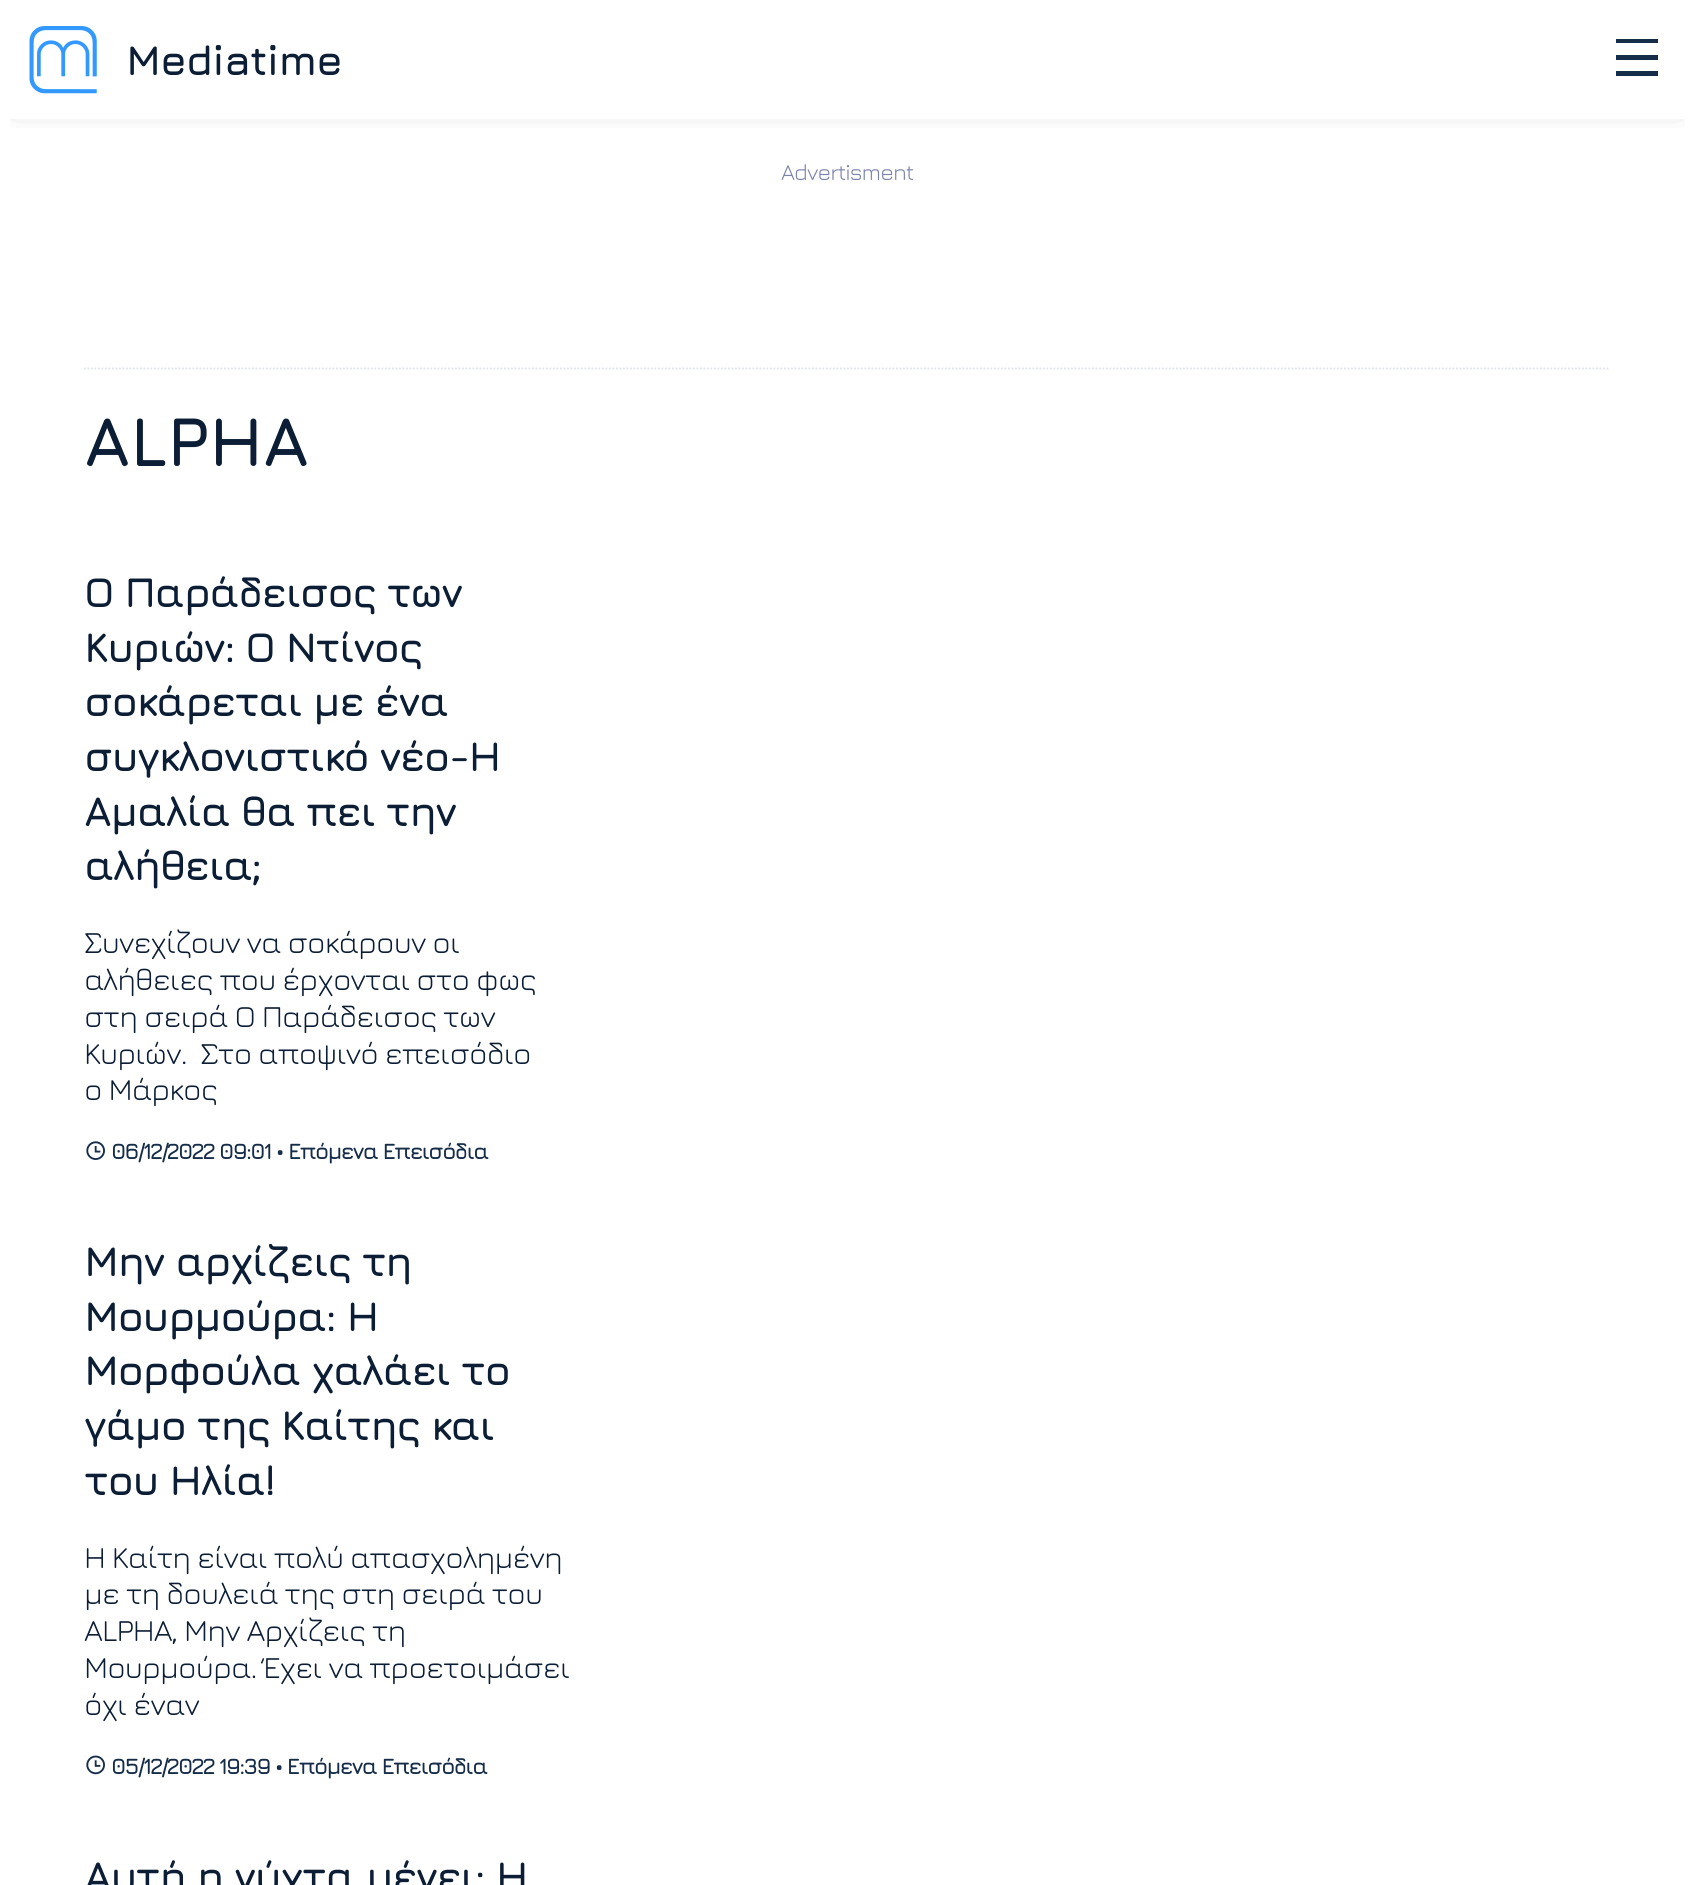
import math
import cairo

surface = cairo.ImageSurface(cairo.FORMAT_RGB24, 1694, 1885)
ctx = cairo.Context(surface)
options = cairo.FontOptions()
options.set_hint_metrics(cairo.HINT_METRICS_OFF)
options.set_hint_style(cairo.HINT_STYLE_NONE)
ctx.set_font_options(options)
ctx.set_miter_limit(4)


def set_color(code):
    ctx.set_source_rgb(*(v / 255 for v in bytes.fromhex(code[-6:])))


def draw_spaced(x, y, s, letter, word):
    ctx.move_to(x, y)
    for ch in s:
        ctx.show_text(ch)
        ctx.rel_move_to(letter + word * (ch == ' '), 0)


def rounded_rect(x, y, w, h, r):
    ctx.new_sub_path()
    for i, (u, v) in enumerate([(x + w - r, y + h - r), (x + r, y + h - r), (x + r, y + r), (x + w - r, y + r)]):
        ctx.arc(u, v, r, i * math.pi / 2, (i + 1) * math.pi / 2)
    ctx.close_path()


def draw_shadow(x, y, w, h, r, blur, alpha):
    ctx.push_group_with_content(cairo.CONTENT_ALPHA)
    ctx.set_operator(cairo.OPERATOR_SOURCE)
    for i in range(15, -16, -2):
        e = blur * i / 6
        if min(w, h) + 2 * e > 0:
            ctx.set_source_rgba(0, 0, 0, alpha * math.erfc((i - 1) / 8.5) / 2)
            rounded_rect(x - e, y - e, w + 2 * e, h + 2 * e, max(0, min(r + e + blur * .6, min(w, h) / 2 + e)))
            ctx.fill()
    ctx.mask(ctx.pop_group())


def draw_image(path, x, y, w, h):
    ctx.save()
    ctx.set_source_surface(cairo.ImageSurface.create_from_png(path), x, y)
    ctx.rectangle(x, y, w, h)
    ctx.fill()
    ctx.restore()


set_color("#ffffff")
ctx.paint()
ctx.save()
ctx.rectangle(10, 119, 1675, 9)
ctx.clip()
set_color("#3f4750")
draw_shadow(18, 11, 1659, 84, 0, 16, 1)
ctx.restore()
draw_image("assets/img1.png", 29, 26, 68, 68)
ctx.select_font_face("Jura", cairo.FONT_SLANT_NORMAL, cairo.FONT_WEIGHT_BOLD)
ctx.set_font_size(42)
set_color("#0c1e35")
draw_spaced(126, 75, "Mediatime", -0.9, 0)
set_color("#162d4a")
ctx.new_path()
ctx.move_to(1616, 39)
ctx.line_to(1658, 39)
ctx.line_to(1658, 43)
ctx.line_to(1616, 43)
ctx.close_path()
ctx.move_to(1616, 55)
ctx.line_to(1658, 55)
ctx.line_to(1658, 60)
ctx.line_to(1616, 60)
ctx.close_path()
ctx.move_to(1616, 71)
ctx.line_to(1658, 71)
ctx.line_to(1658, 76)
ctx.line_to(1616, 76)
ctx.close_path()
ctx.fill()
ctx.new_path()
ctx.move_to(84, 368.5)
ctx.line_to(1610, 368.5)
set_color("#dee2ec")
ctx.set_line_width(1.8)
ctx.set_dash([1.75, 1.75])
ctx.stroke()
ctx.select_font_face("Jura")
ctx.set_font_size(22.75)
set_color("#7d84ab")
draw_spaced(781, 180, "Advertisment", -0.9, 0)
ctx.select_font_face("Jura", cairo.FONT_SLANT_NORMAL, cairo.FONT_WEIGHT_BOLD)
ctx.set_font_size(70)
set_color("#0c1e35")
draw_spaced(84, 466, "ALPHA", -0.9, 0)
ctx.set_font_size(42)
draw_spaced(84, 607, "Ο Παράδεισος των", -1.75, 0)
draw_spaced(84, 662, "Κυριών: Ο Ντίνος", -1.75, 0)
draw_spaced(84, 716, "σοκάρεται με ένα", -1.75, 0)
draw_spaced(84, 771, "συγκλονιστικό νέο-Η", -1.75, 0)
draw_spaced(84, 826, "Αμαλία θα πει την", -1.75, 0)
draw_spaced(84, 880, "αλήθεια;", -1.75, 0)
ctx.select_font_face("Jura")
ctx.set_font_size(30.75)
draw_spaced(84, 953, "Συνεχίζουν να σοκάρουν οι", -0.9, 0)
draw_spaced(84, 990, "αλήθειες που έρχονται στο φως", -0.9, 0)
draw_spaced(84, 1027, "στη σειρά Ο Παράδεισος των", -0.9, 0)
draw_spaced(84, 1064, "Κυριών.  Στο αποψινό επεισόδιο", -0.9, 0)
draw_spaced(84, 1100, "ο Μάρκος", -0.9, 0)
draw_image("assets/img2.png", 86, 1141, 19, 19)
ctx.select_font_face("Jura", cairo.FONT_SLANT_NORMAL, cairo.FONT_WEIGHT_BOLD)
ctx.set_font_size(22.4)
set_color("#162d4a")
draw_spaced(111, 1159, "06/12/2022 09:01 • Επόμενα Επεισόδια", -1.75, 0)
ctx.set_font_size(42)
set_color("#0c1e35")
draw_spaced(84, 1276, "Μην αρχίζεις τη", -1.75, 0)
draw_spaced(84, 1331, "Μουρμούρα: Η", -1.75, 0)
draw_spaced(84, 1385, "Μορφούλα χαλάει το", -1.75, 0)
draw_spaced(84, 1440, "γάμο της Καίτης και", -1.75, 0)
draw_spaced(84, 1495, "του Ηλία!", -1.75, 0)
ctx.select_font_face("Jura")
ctx.set_font_size(30.75)
draw_spaced(84, 1568, "Η Καίτη είναι πολύ απασχολημένη", -0.9, 0)
draw_spaced(84, 1604, "με τη δουλειά της στη σειρά του", -0.9, 0)
draw_spaced(84, 1641, "ALPHA, Μην Αρχίζεις τη", -0.9, 0)
draw_spaced(84, 1678, "Μουρμούρα. Έχει να προετοιμάσει", -0.9, 0)
draw_spaced(84, 1715, "όχι έναν", -0.9, 0)
draw_image("assets/img3.png", 86, 1755, 19, 20)
ctx.select_font_face("Jura", cairo.FONT_SLANT_NORMAL, cairo.FONT_WEIGHT_BOLD)
ctx.set_font_size(22.4)
set_color("#162d4a")
draw_spaced(111, 1774, "05/12/2022 19:39 • Επόμενα Επεισόδια", -1.75, 0)
ctx.set_font_size(42)
set_color("#0c1e35")
draw_spaced(84, 1891, "Αυτή η νύχτα μένει: Η", -1.75, 0)
surface.write_to_png("output.png")
